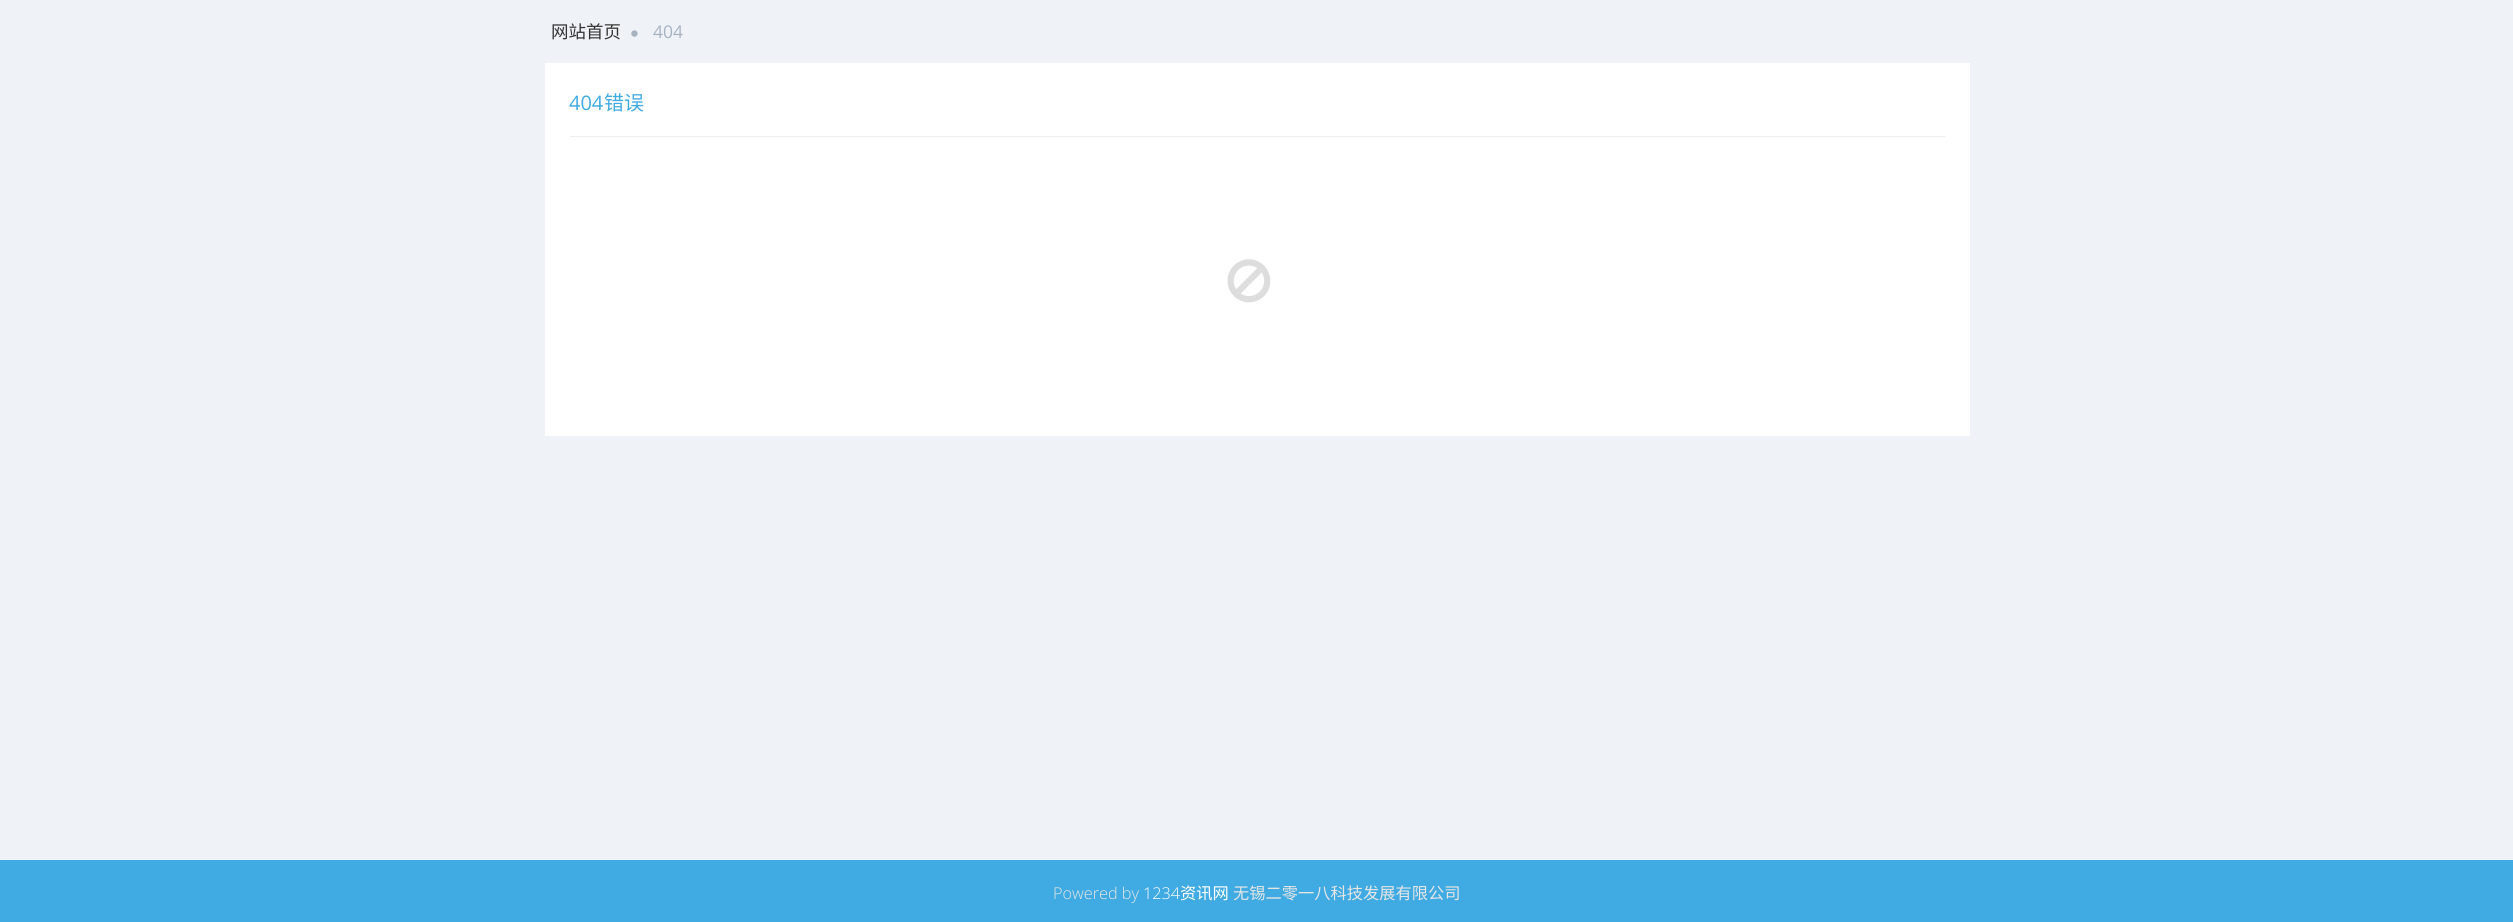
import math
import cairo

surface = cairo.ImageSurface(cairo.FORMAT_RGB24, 2513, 922)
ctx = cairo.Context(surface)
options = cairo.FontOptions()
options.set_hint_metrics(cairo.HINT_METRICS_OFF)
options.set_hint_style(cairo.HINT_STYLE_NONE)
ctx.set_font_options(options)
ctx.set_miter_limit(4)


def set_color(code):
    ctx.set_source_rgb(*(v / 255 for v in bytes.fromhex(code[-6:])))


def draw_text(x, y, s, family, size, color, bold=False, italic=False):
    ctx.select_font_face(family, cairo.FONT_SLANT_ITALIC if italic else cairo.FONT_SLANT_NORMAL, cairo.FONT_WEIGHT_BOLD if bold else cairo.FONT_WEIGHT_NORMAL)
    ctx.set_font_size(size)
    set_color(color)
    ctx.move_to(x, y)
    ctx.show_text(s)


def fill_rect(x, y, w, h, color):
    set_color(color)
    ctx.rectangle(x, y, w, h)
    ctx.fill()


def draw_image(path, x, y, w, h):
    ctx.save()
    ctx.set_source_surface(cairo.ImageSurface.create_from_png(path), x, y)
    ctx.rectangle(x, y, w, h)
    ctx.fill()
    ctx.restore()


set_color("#eff3f8")
ctx.paint()
draw_text(551, 38, "网站首页", "Noto Sans CJK SC", 17.5, "#333333")
draw_image("assets/img1.png", 631, 30, 7, 7)
draw_text(653, 38, "404", "Open Sans", 17.5, "#a7b2c0")
fill_rect(545, 63, 1425, 373, "#ffffff")
fill_rect(570, 136, 1375, 1, "#eeeeee")
draw_text(569, 110, "404", "Open Sans", 20, "#40aae2")
draw_text(604, 110, "错误", "Noto Sans CJK SC", 20, "#40aae2")
draw_image("assets/img2.png", 1227, 259, 44, 44)
fill_rect(0, 860, 2513, 62, "#40aae2")
draw_text(1053, 899, "Powered by", "Open Sans Light", 16.25, "#e6e6e5")
draw_text(1143, 899, "1234", "Open Sans Light", 16.25, "#ffffff")
draw_text(1180, 899, "资讯网", "Noto Sans CJK SC", 16.25, "#ffffff")
draw_text(1233, 899, "无锡二零一八科技发展有限公司", "Noto Sans CJK SC", 16.25, "#e6e6e5")
surface.write_to_png("output.png")
